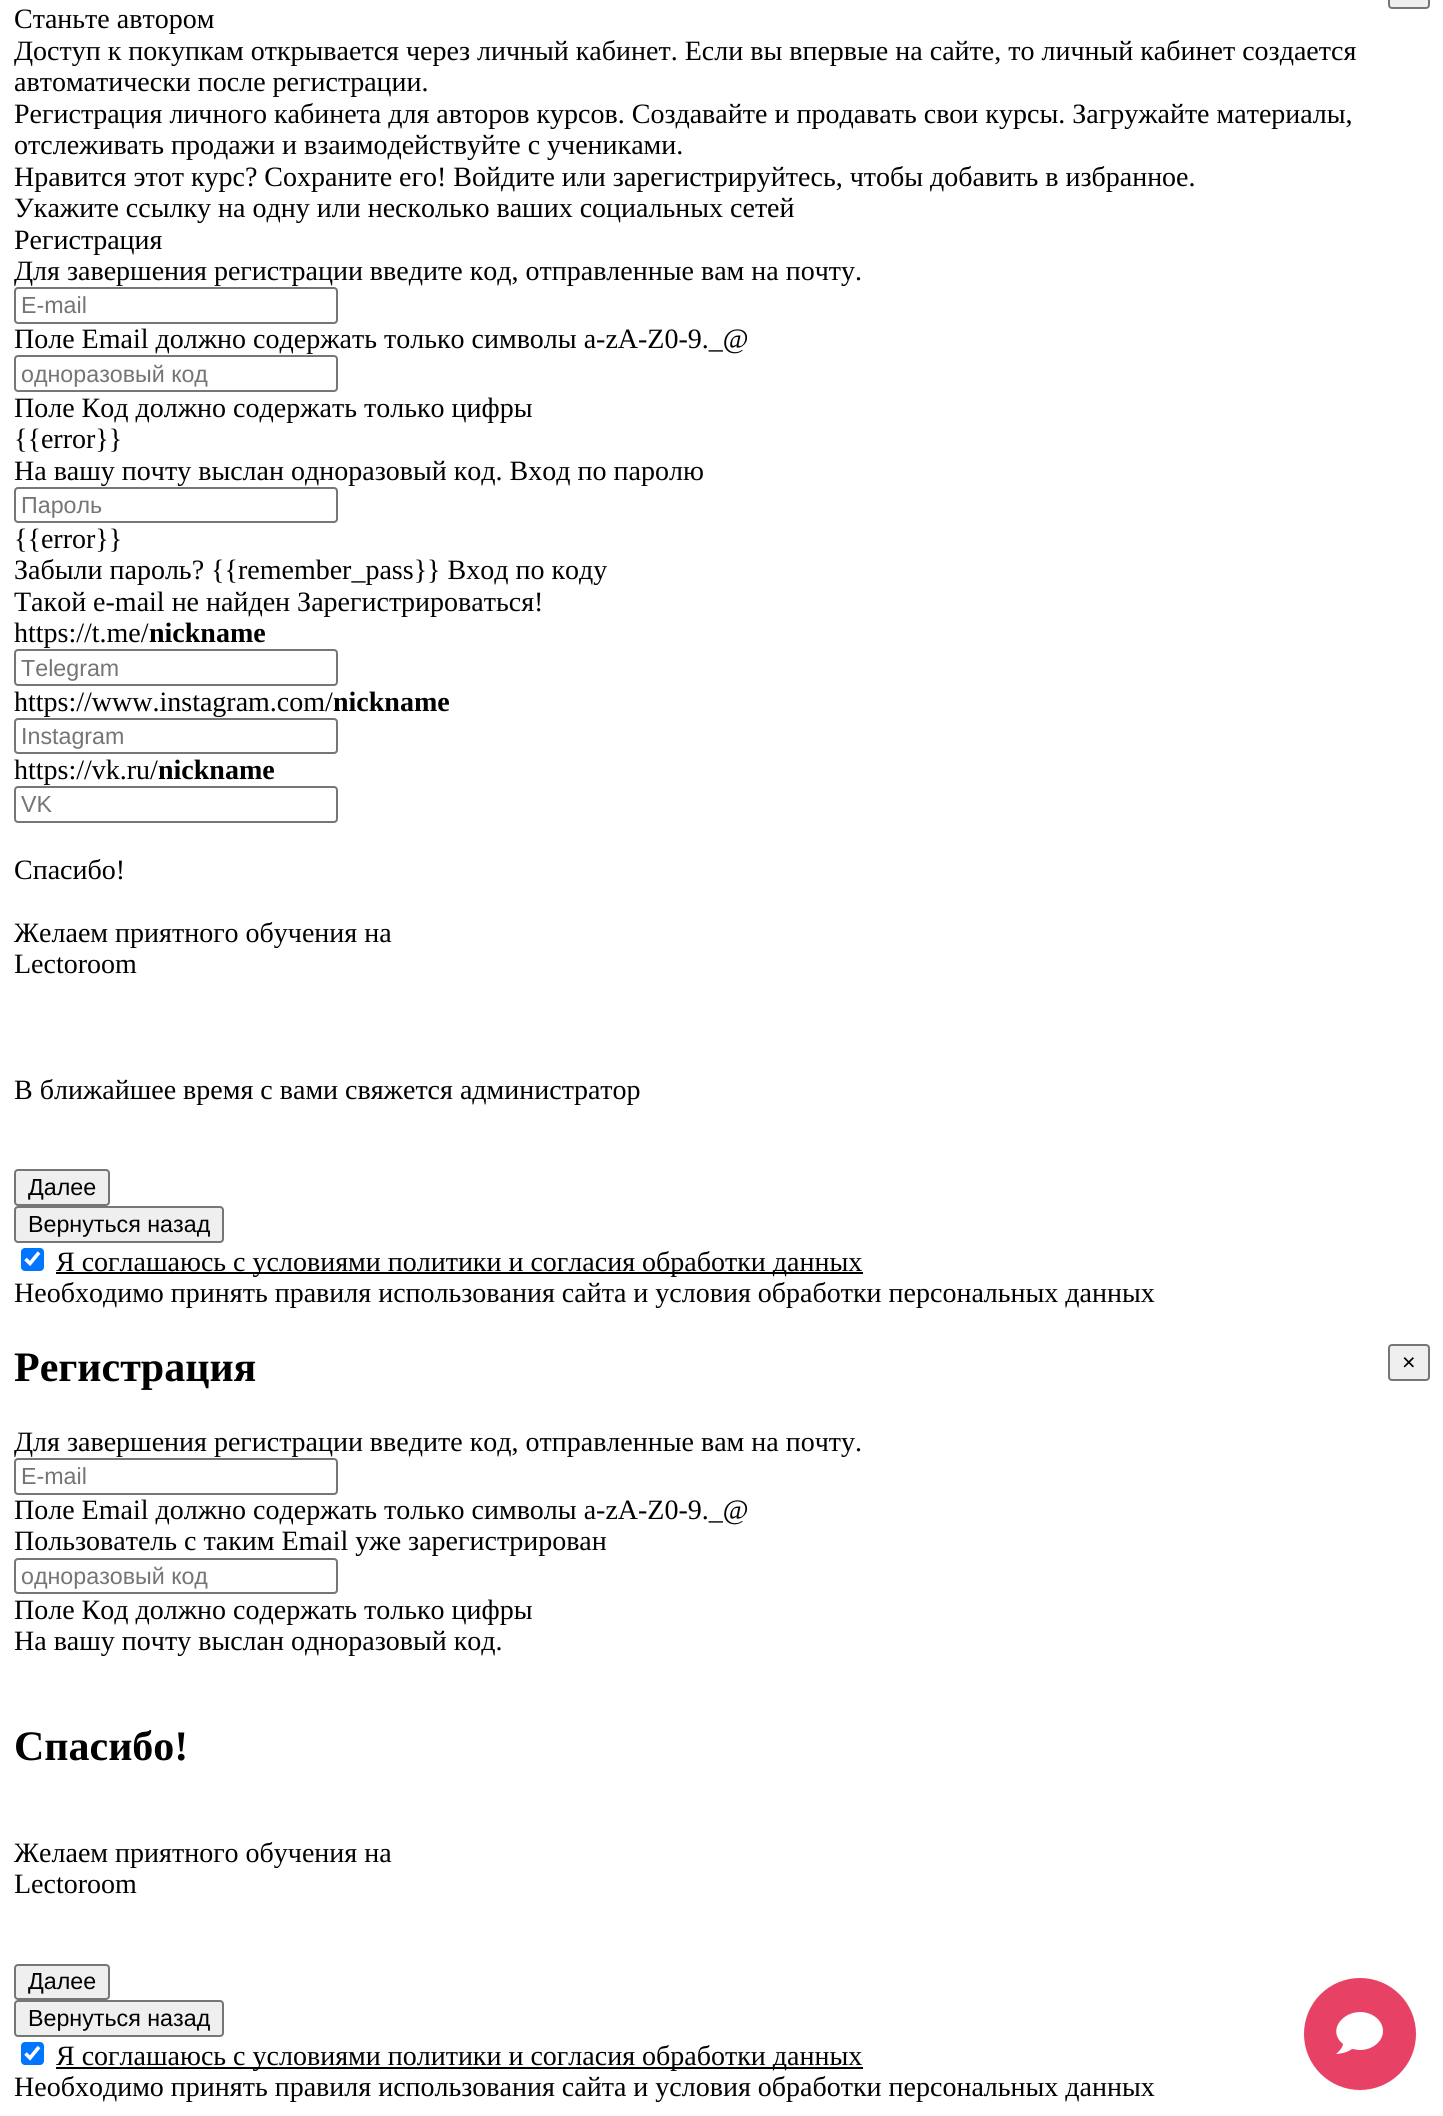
import math
import cairo

surface = cairo.ImageSurface(cairo.FORMAT_RGB24, 1443, 2116)
ctx = cairo.Context(surface)
options = cairo.FontOptions()
options.set_hint_metrics(cairo.HINT_METRICS_OFF)
options.set_hint_style(cairo.HINT_STYLE_NONE)
ctx.set_font_options(options)
ctx.set_miter_limit(4)


def set_color(code):
    ctx.set_source_rgb(*(v / 255 for v in bytes.fromhex(code[-6:])))


def draw_text(x, y, s, family, size, color, bold=False, italic=False):
    ctx.select_font_face(family, cairo.FONT_SLANT_ITALIC if italic else cairo.FONT_SLANT_NORMAL, cairo.FONT_WEIGHT_BOLD if bold else cairo.FONT_WEIGHT_NORMAL)
    ctx.set_font_size(size)
    set_color(color)
    ctx.move_to(x, y)
    ctx.show_text(s)


def fill_rect(x, y, w, h, color):
    set_color(color)
    ctx.rectangle(x, y, w, h)
    ctx.fill()


def rounded_rect(x, y, w, h, r):
    ctx.new_sub_path()
    for i, (u, v) in enumerate([(x + w - r, y + h - r), (x + r, y + h - r), (x + r, y + r), (x + w - r, y + r)]):
        ctx.arc(u, v, r, i * math.pi / 2, (i + 1) * math.pi / 2)
    ctx.close_path()


set_color("#ffffff")
ctx.paint()
set_color("#efefef")
rounded_rect(1389, -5, 40, 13, 3)
ctx.fill_preserve()
set_color("#767676")
ctx.stroke()
draw_text(14, 28, "Станьте автором", "Liberation Serif", 28, "#000000")
draw_text(14, 60, "Доступ к покупкам открывается через личный кабинет. Если вы впервые на сайте, то личный кабинет создается", "Liberation Serif", 28, "#000000")
draw_text(14, 91, "автоматически после регистрации.", "Liberation Serif", 28, "#000000")
draw_text(14, 123, "Регистрация личного кабинета для авторов курсов. Создавайте и продавать свои курсы. Загружайте материалы,", "Liberation Serif", 28, "#000000")
draw_text(14, 154, "отслеживать продажи и взаимодействуйте с учениками.", "Liberation Serif", 28, "#000000")
draw_text(14, 186, "Нравится этот курс? Сохраните его! Войдите или зарегистрируйтесь, чтобы добавить в избранное.", "Liberation Serif", 28, "#000000")
draw_text(14, 217, "Укажите ссылку на одну или несколько ваших социальных сетей", "Liberation Serif", 28, "#000000")
draw_text(14, 249, "Регистрация", "Liberation Serif", 28, "#000000")
draw_text(14, 280, "Для завершения регистрации введите код, отправленные вам на почту.", "Liberation Serif", 28, "#000000")
rounded_rect(15, 288, 322, 35, 3)
set_color("#767676")
ctx.stroke()
draw_text(21, 313, "E-mail", "Liberation Sans", 23.25, "#757575")
draw_text(14, 348, "Поле Email должно содержать только символы a-zA-Z0-9._@", "Liberation Serif", 28, "#000000")
rounded_rect(15, 356, 322, 35, 3)
set_color("#767676")
ctx.stroke()
draw_text(21, 382, "одноразовый код", "Liberation Sans", 23.25, "#757575")
draw_text(14, 417, "Поле Код должно содержать только цифры", "Liberation Serif", 28, "#000000")
draw_text(14, 448, "{{error}}", "Liberation Serif", 28, "#000000")
draw_text(14, 480, "На вашу почту выслан одноразовый код. Вход по паролю", "Liberation Serif", 28, "#000000")
rounded_rect(15, 488, 322, 34, 3)
set_color("#767676")
ctx.stroke()
draw_text(21, 513, "Пароль", "Liberation Sans", 23.25, "#757575")
draw_text(14, 548, "{{error}}", "Liberation Serif", 28, "#000000")
draw_text(14, 579, "Забыли пароль? {{remember_pass}} Вход по коду", "Liberation Serif", 28, "#000000")
draw_text(14, 611, "Такой e-mail не найден Зарегистрироваться!", "Liberation Serif", 28, "#000000")
draw_text(14, 642, "https://t.me/", "Liberation Serif", 28, "#000000")
draw_text(149, 642, "nickname", "Liberation Serif", 28, "#000000", bold=True)
rounded_rect(15, 650, 322, 35, 3)
set_color("#767676")
ctx.stroke()
draw_text(21, 676, "Telegram", "Liberation Sans", 23.25, "#757575")
draw_text(14, 711, "https://www.instagram.com/", "Liberation Serif", 28, "#000000")
draw_text(333, 711, "nickname", "Liberation Serif", 28, "#000000", bold=True)
rounded_rect(15, 719, 322, 34, 3)
set_color("#767676")
ctx.stroke()
draw_text(21, 744, "Instagram", "Liberation Sans", 23.25, "#757575")
draw_text(14, 779, "https://vk.ru/", "Liberation Serif", 28, "#000000")
draw_text(158, 779, "nickname", "Liberation Serif", 28, "#000000", bold=True)
rounded_rect(15, 787, 322, 35, 3)
set_color("#767676")
ctx.stroke()
draw_text(21, 812, "VK", "Liberation Sans", 23.25, "#757575")
draw_text(14, 879, "Спасибо!", "Liberation Serif", 28, "#000000")
draw_text(14, 942, "Желаем приятного обучения на", "Liberation Serif", 28, "#000000")
draw_text(14, 973, "Lectoroom", "Liberation Serif", 28, "#000000")
draw_text(14, 1099, "В ближайшее время с вами свяжется администратор", "Liberation Serif", 28, "#000000")
set_color("#efefef")
rounded_rect(15, 1170, 94, 35, 3)
ctx.fill_preserve()
set_color("#767676")
ctx.stroke()
draw_text(28, 1195, "Далее", "Liberation Sans", 23.25, "#000000")
set_color("#efefef")
rounded_rect(15, 1207, 208, 35, 3)
ctx.fill_preserve()
set_color("#767676")
ctx.stroke()
draw_text(28, 1232, "Вернуться назад", "Liberation Sans", 23.25, "#000000")
set_color("#0075ff")
rounded_rect(21, 1248, 23, 23, 4)
ctx.fill()
ctx.new_path()
ctx.move_to(25.5, 1259)
ctx.line_to(30, 1263.5)
ctx.line_to(39, 1252.5)
set_color("#ffffff")
ctx.set_line_width(3.6)
ctx.stroke()
fill_rect(56, 1272, 807, 2, "#000000")
draw_text(56, 1271, "Я соглашаюсь с условиями политики и согласия обработки данных", "Liberation Serif", 28, "#000000")
draw_text(14, 1302, "Необходимо принять правиля использования сайта и условия обработки персональных данных", "Liberation Serif", 28, "#000000")
draw_text(14, 1381, "Регистрация", "Liberation Serif", 42, "#000000", bold=True)
draw_text(14, 1451, "Для завершения регистрации введите код, отправленные вам на почту.", "Liberation Serif", 28, "#000000")
rounded_rect(15, 1459, 322, 35, 3)
set_color("#767676")
ctx.set_line_width(2)
ctx.stroke()
draw_text(21, 1484, "E-mail", "Liberation Sans", 23.25, "#757575")
draw_text(14, 1519, "Поле Email должно содержать только символы a-zA-Z0-9._@", "Liberation Serif", 28, "#000000")
draw_text(14, 1550, "Пользователь с таким Email уже зарегистрирован", "Liberation Serif", 28, "#000000")
rounded_rect(15, 1559, 322, 34, 3)
set_color("#767676")
ctx.stroke()
draw_text(21, 1584, "одноразовый код", "Liberation Sans", 23.25, "#757575")
draw_text(14, 1619, "Поле Код должно содержать только цифры", "Liberation Serif", 28, "#000000")
draw_text(14, 1650, "На вашу почту выслан одноразовый код.", "Liberation Serif", 28, "#000000")
draw_text(14, 1760, "Спасибо!", "Liberation Serif", 42, "#000000", bold=True)
draw_text(14, 1862, "Желаем приятного обучения на", "Liberation Serif", 28, "#000000")
draw_text(14, 1893, "Lectoroom", "Liberation Serif", 28, "#000000")
set_color("#efefef")
rounded_rect(15, 1965, 94, 34, 3)
ctx.fill_preserve()
set_color("#767676")
ctx.stroke()
draw_text(28, 1989, "Далее", "Liberation Sans", 23.25, "#000000")
set_color("#efefef")
rounded_rect(15, 2001, 208, 35, 3)
ctx.fill_preserve()
set_color("#767676")
ctx.stroke()
draw_text(28, 2026, "Вернуться назад", "Liberation Sans", 23.25, "#000000")
set_color("#0075ff")
rounded_rect(21, 2042, 23, 23, 4)
ctx.fill()
ctx.new_path()
ctx.move_to(25.5, 2053.5)
ctx.line_to(30, 2058)
ctx.line_to(39, 2047)
set_color("#ffffff")
ctx.set_line_width(3.6)
ctx.stroke()
fill_rect(56, 2067, 807, 2, "#000000")
draw_text(56, 2065, "Я соглашаюсь с условиями политики и согласия обработки данных", "Liberation Serif", 28, "#000000")
draw_text(14, 2096, "Необходимо принять правиля использования сайта и условия обработки персональных данных", "Liberation Serif", 28, "#000000")
set_color("#efefef")
rounded_rect(1389, 1345, 40, 35, 3)
ctx.fill_preserve()
set_color("#767676")
ctx.set_line_width(2)
ctx.stroke()
draw_text(1402, 1370, "×", "Liberation Sans", 23.25, "#000000")
set_color("#e74266")
ctx.new_path()
ctx.arc(1360, 2034, 56, 0, 2 * math.pi)
ctx.fill()
set_color("#ffffff")
ctx.new_path()
ctx.move_to(1360, 2012)
ctx.curve_to(1373, 2012, 1383, 2021, 1383, 2031)
ctx.curve_to(1383, 2041, 1373, 2050, 1360, 2050)
ctx.curve_to(1357, 2050, 1354, 2049, 1352, 2049)
ctx.curve_to(1345, 2054, 1336, 2054, 1336, 2054)
ctx.curve_to(1342, 2049, 1343, 2045, 1343, 2044)
ctx.curve_to(1327, 2031, 1342, 2012, 1360, 2012)
ctx.fill()
surface.write_to_png("output.png")
